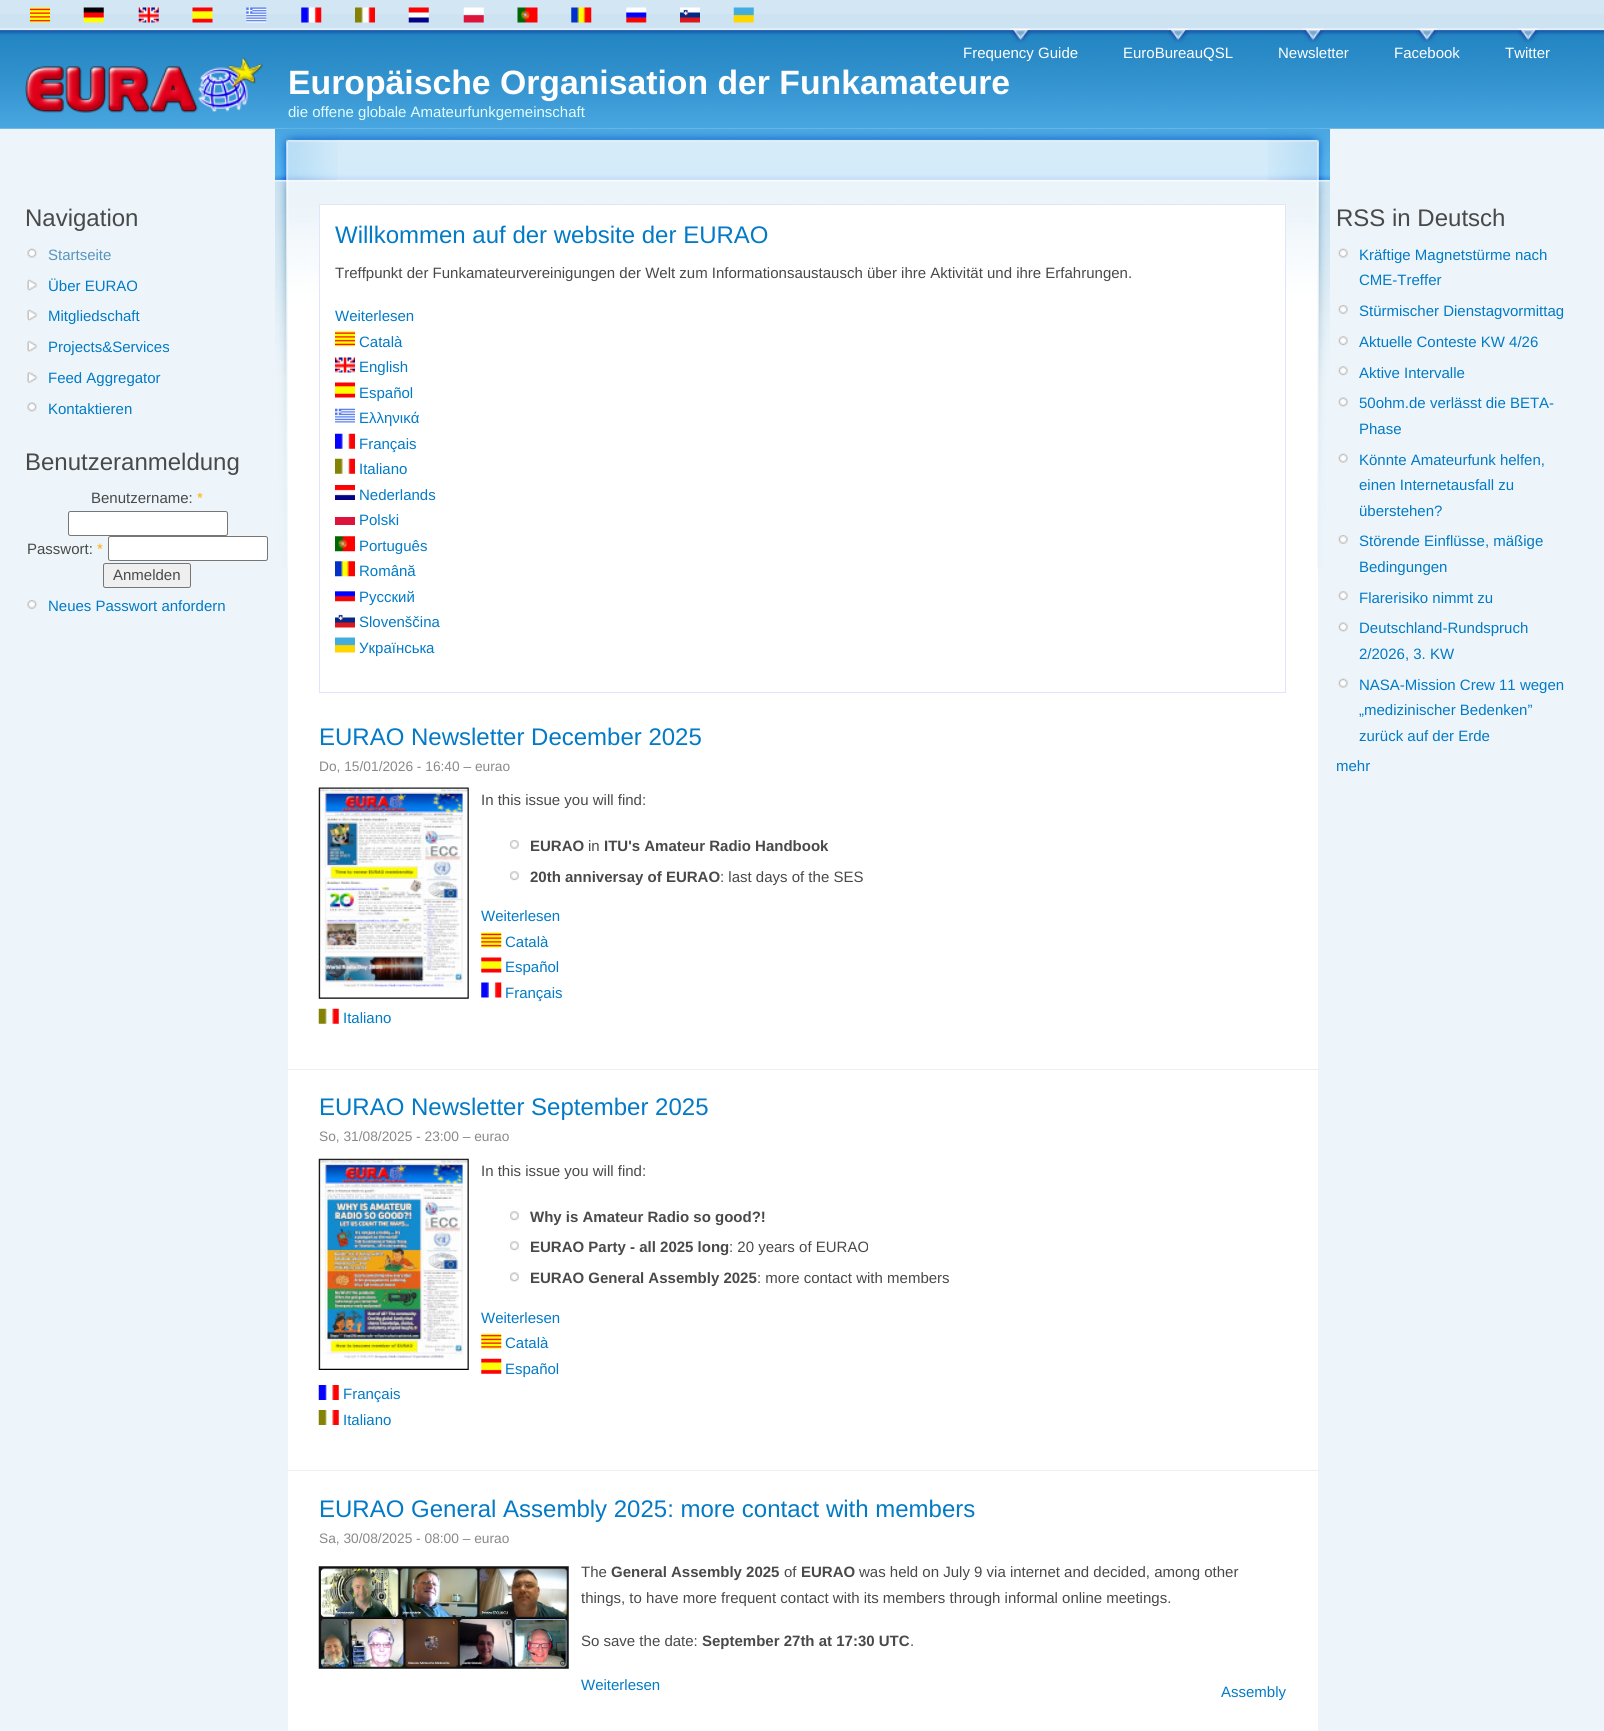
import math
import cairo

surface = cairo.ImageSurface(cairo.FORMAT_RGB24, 1604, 1731)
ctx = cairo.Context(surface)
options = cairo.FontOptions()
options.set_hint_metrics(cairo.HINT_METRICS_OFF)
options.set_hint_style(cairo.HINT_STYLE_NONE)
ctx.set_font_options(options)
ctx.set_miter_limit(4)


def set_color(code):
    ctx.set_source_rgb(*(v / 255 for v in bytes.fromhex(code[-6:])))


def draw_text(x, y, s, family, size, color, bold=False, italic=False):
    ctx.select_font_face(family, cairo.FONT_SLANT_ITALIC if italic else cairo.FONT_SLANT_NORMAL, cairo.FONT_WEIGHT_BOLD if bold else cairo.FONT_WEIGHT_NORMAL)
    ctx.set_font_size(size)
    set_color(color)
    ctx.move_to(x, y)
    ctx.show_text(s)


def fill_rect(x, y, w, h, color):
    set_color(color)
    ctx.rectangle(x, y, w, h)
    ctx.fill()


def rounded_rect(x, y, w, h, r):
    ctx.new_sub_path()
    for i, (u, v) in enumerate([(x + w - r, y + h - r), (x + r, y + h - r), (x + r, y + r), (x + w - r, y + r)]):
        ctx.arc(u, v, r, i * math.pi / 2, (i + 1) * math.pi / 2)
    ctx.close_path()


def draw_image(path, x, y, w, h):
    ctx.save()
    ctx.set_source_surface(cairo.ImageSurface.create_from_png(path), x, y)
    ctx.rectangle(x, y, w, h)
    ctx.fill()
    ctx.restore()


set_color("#edf5fa")
ctx.paint()
fill_rect(0, 0, 1604, 29, "#d2e6f3")
fill_rect(0, 14, 1604, 14, "#cde3f1")
draw_image("assets/img1.png", 30, 7, 20, 16)
draw_image("assets/img2.png", 83, 7, 21, 16)
draw_image("assets/img3.png", 138, 7, 21, 16)
draw_image("assets/img4.png", 192, 7, 21, 16)
draw_image("assets/img5.png", 246, 7, 21, 16)
draw_image("assets/img6.png", 301, 7, 21, 16)
draw_image("assets/img7.png", 355, 7, 20, 16)
draw_image("assets/img8.png", 408, 7, 21, 16)
draw_image("assets/img9.png", 463, 7, 21, 16)
draw_image("assets/img10.png", 517, 7, 21, 16)
draw_image("assets/img11.png", 571, 7, 21, 16)
draw_image("assets/img12.png", 626, 7, 21, 16)
draw_image("assets/img13.png", 680, 7, 20, 16)
draw_image("assets/img14.png", 733, 7, 21, 16)
draw_image("assets/img15.png", 0, 28, 1604, 101)
draw_image("assets/img16.png", 1010, 28, 21, 15)
draw_text(963, 58, "Frequency Guide", "Liberation Sans", 15, "#ffffff")
draw_image("assets/img17.png", 1167, 28, 22, 15)
draw_text(1123, 58, "EuroBureauQSL", "Liberation Sans", 15, "#ffffff")
draw_image("assets/img18.png", 1302, 28, 22, 15)
draw_text(1278, 58, "Newsletter", "Liberation Sans", 15, "#ffffff")
draw_image("assets/img19.png", 1416, 28, 22, 15)
draw_text(1394, 58, "Facebook", "Liberation Sans", 15, "#ffffff")
draw_image("assets/img20.png", 1517, 28, 22, 15)
draw_text(1505, 58, "Twitter", "Liberation Sans", 15, "#ffffff")
draw_image("assets/img21.png", 25, 57, 238, 56)
draw_text(288, 94, "Europäische Organisation der Funkamateure", "Liberation Sans", 33.75, "#ffffff", bold=True)
draw_text(288, 117, "die offene globale Amateurfunkgemeinschaft", "Liberation Sans", 15, "#e0ffff")
draw_text(25, 226, "Navigation", "Liberation Sans", 24, "#494949")
draw_image("assets/img22.png", 27, 248, 10, 10)
draw_text(48, 260, "Startseite", "Liberation Sans", 15, "#5895be")
draw_image("assets/img23.png", 27, 279, 11, 12)
draw_text(48, 291, "Über EURAO", "Liberation Sans", 15, "#027ac6")
draw_image("assets/img23.png", 27, 309, 11, 12)
draw_text(48, 321, "Mitgliedschaft", "Liberation Sans", 15, "#027ac6")
draw_image("assets/img24.png", 27, 340, 11, 13)
draw_text(48, 352, "Projects&Services", "Liberation Sans", 15, "#027ac6")
draw_image("assets/img25.png", 27, 371, 11, 13)
draw_text(48, 383, "Feed Aggregator", "Liberation Sans", 15, "#027ac6")
draw_image("assets/img26.png", 27, 402, 10, 10)
draw_text(48, 414, "Kontaktieren", "Liberation Sans", 15, "#027ac6")
draw_text(25, 470, "Benutzeranmeldung", "Liberation Sans", 24, "#494949")
draw_text(91, 503, "Benutzername:", "Liberation Sans", 15, "#494949")
draw_text(197, 503, "*", "Liberation Sans", 15, "#ffae00")
set_color("#ffffff")
rounded_rect(68.5, 511.5, 159, 24, 2)
ctx.fill_preserve()
set_color("#767676")
ctx.set_line_width(1)
ctx.stroke()
draw_text(27, 554, "Passwort:", "Liberation Sans", 15, "#494949")
draw_text(97, 554, "*", "Liberation Sans", 15, "#ffae00")
set_color("#ffffff")
rounded_rect(108.5, 536.5, 159, 24, 2)
ctx.fill_preserve()
set_color("#767676")
ctx.stroke()
set_color("#efefef")
rounded_rect(103.5, 563.5, 87, 24, 2)
ctx.fill_preserve()
set_color("#767676")
ctx.stroke()
draw_text(113, 580, "Anmelden", "Liberation Sans", 15, "#494949")
draw_image("assets/img27.png", 27, 600, 10, 9)
draw_text(48, 611, "Neues Passwort anfordern", "Liberation Sans", 15, "#027ac6")
fill_rect(288, 568, 1030, 1163, "#ffffff")
draw_image("assets/img28.png", 287, 128, 1031, 76)
draw_image("assets/img29.png", 1267, 128, 63, 441)
draw_image("assets/img30.png", 275, 128, 63, 441)
fill_rect(320, 205, 965, 363, "#ffffff")
ctx.rectangle(319.5, 204.5, 966, 488)
set_color("#e0e5fb")
ctx.stroke()
draw_text(335, 243, "Willkommen auf der website der EURAO", "Liberation Sans", 24, "#027ac6")
draw_text(335, 278, "Treffpunkt der Funkamateurvereinigungen der Welt zum Informationsaustausch über ihre Aktivität und ihre Erfahrungen.", "Liberation Sans", 15, "#494949")
draw_text(335, 321, "Weiterlesen", "Liberation Sans", 15, "#027ac6")
draw_image("assets/img31.png", 335, 331, 20, 16)
draw_text(359, 347, "Català", "Liberation Sans", 15, "#027ac6")
draw_image("assets/img32.png", 335, 357, 20, 16)
draw_text(359, 372, "English", "Liberation Sans", 15, "#027ac6")
draw_image("assets/img33.png", 335, 382, 20, 16)
draw_text(359, 398, "Español", "Liberation Sans", 15, "#027ac6")
draw_image("assets/img34.png", 335, 408, 20, 15)
draw_text(359, 423, "Ελληνικά", "Liberation Sans", 15, "#027ac6")
draw_image("assets/img35.png", 335, 433, 20, 16)
draw_text(359, 449, "Français", "Liberation Sans", 15, "#027ac6")
draw_image("assets/img36.png", 335, 458, 20, 16)
draw_text(359, 474, "Italiano", "Liberation Sans", 15, "#027ac6")
draw_image("assets/img37.png", 335, 485, 20, 15)
draw_text(359, 500, "Nederlands", "Liberation Sans", 15, "#027ac6")
draw_text(359, 525, "Polski", "Liberation Sans", 15, "#027ac6")
fill_rect(335, 517, 20, 8, "#dc143c")
draw_image("assets/img38.png", 335, 536, 20, 16)
draw_text(359, 551, "Português", "Liberation Sans", 15, "#027ac6")
draw_image("assets/img39.png", 335, 561, 20, 16)
draw_text(359, 576, "Română", "Liberation Sans", 15, "#027ac6")
draw_image("assets/img40.png", 335, 591, 20, 11)
draw_text(359, 602, "Русский", "Liberation Sans", 15, "#027ac6")
draw_image("assets/img41.png", 335, 614, 20, 14)
draw_text(359, 627, "Slovenščina", "Liberation Sans", 15, "#027ac6")
draw_image("assets/img42.png", 335, 637, 20, 16)
draw_text(359, 653, "Українська", "Liberation Sans", 15, "#027ac6")
fill_rect(286, 1069, 1033, 1, "#e9eff3")
draw_text(319, 745, "EURAO Newsletter December 2025", "Liberation Sans", 24, "#027ac6")
draw_text(319, 771, "Do, 15/01/2026 - 16:40 – eurao", "Liberation Sans", 13.75, "#898989")
draw_image("assets/img43.png", 318, 787, 151, 212)
draw_text(481, 805, "In this issue you will find:", "Liberation Sans", 15, "#494949")
draw_image("assets/img44.png", 510, 840, 9, 9)
draw_text(530, 851, "EURAO", "Liberation Sans", 15, "#494949", bold=True)
draw_text(588, 851, "in", "Liberation Sans", 15, "#494949")
draw_text(604, 851, "ITU's Amateur Radio Handbook", "Liberation Sans", 15, "#494949", bold=True)
draw_image("assets/img45.png", 510, 871, 9, 10)
draw_text(530, 882, "20th anniversay of EURAO", "Liberation Sans", 15, "#494949", bold=True)
draw_text(720, 882, ": last days of the SES", "Liberation Sans", 15, "#494949")
draw_text(481, 921, "Weiterlesen", "Liberation Sans", 15, "#027ac6")
draw_image("assets/img46.png", 481, 932, 21, 16)
draw_text(505, 947, "Català", "Liberation Sans", 15, "#027ac6")
draw_image("assets/img47.png", 481, 957, 21, 16)
draw_text(505, 972, "Español", "Liberation Sans", 15, "#027ac6")
draw_image("assets/img48.png", 481, 982, 21, 16)
draw_text(505, 998, "Français", "Liberation Sans", 15, "#027ac6")
draw_image("assets/img49.png", 318, 1008, 21, 16)
draw_text(343, 1023, "Italiano", "Liberation Sans", 15, "#027ac6")
fill_rect(286, 1470, 1033, 1, "#e9eff3")
draw_text(319, 1115, "EURAO Newsletter September 2025", "Liberation Sans", 24, "#027ac6")
draw_text(319, 1141, "So, 31/08/2025 - 23:00 – eurao", "Liberation Sans", 13.75, "#898989")
draw_image("assets/img50.png", 318, 1158, 151, 212)
draw_text(481, 1176, "In this issue you will find:", "Liberation Sans", 15, "#494949")
draw_image("assets/img45.png", 510, 1211, 9, 10)
draw_text(530, 1222, "Why is Amateur Radio so good?!", "Liberation Sans", 15, "#494949", bold=True)
draw_image("assets/img45.png", 510, 1241, 9, 10)
draw_text(530, 1252, "EURAO Party - all 2025 long", "Liberation Sans", 15, "#494949", bold=True)
draw_text(729, 1252, ": 20 years of EURAO", "Liberation Sans", 15, "#494949")
draw_image("assets/img51.png", 510, 1272, 9, 10)
draw_text(530, 1283, "EURAO General Assembly 2025", "Liberation Sans", 15, "#494949", bold=True)
draw_text(757, 1283, ": more contact with members", "Liberation Sans", 15, "#494949")
draw_text(481, 1323, "Weiterlesen", "Liberation Sans", 15, "#027ac6")
draw_image("assets/img52.png", 481, 1333, 21, 16)
draw_text(505, 1348, "Català", "Liberation Sans", 15, "#027ac6")
draw_image("assets/img53.png", 481, 1358, 21, 16)
draw_text(505, 1374, "Español", "Liberation Sans", 15, "#027ac6")
draw_image("assets/img54.png", 318, 1385, 21, 15)
draw_text(343, 1399, "Français", "Liberation Sans", 15, "#027ac6")
draw_image("assets/img55.png", 318, 1410, 21, 15)
draw_text(343, 1425, "Italiano", "Liberation Sans", 15, "#027ac6")
draw_text(319, 1517, "EURAO General Assembly 2025: more contact with members", "Liberation Sans", 24, "#027ac6")
draw_text(319, 1543, "Sa, 30/08/2025 - 08:00 – eurao", "Liberation Sans", 13.75, "#898989")
draw_image("assets/img56.png", 318, 1566, 251, 103)
draw_text(581, 1577, "The", "Liberation Sans", 15, "#494949")
draw_text(611, 1577, "General Assembly 2025", "Liberation Sans", 15, "#494949", bold=True)
draw_text(784, 1577, "of", "Liberation Sans", 15, "#494949")
draw_text(801, 1577, "EURAO", "Liberation Sans", 15, "#494949", bold=True)
draw_text(859, 1577, "was held on July 9 via internet and decided, among other", "Liberation Sans", 15, "#494949")
draw_text(581, 1603, "things, to have more frequent contact with its members through informal online meetings.", "Liberation Sans", 15, "#494949")
draw_text(581, 1646, "So save the date:", "Liberation Sans", 15, "#494949")
draw_text(702, 1646, "September 27th at 17:30 UTC", "Liberation Sans", 15, "#494949", bold=True)
draw_text(910, 1646, ".", "Liberation Sans", 15, "#494949")
draw_text(581, 1690, "Weiterlesen", "Liberation Sans", 15, "#027ac6")
draw_text(1221, 1697, "Assembly", "Liberation Sans", 15, "#027ac6")
draw_text(1336, 226, "RSS in Deutsch", "Liberation Sans", 24, "#494949")
draw_image("assets/img57.png", 1338, 248, 10, 10)
draw_text(1359, 260, "Kräftige Magnetstürme nach", "Liberation Sans", 15, "#027ac6")
draw_text(1359, 285, "CME-Treffer", "Liberation Sans", 15, "#027ac6")
draw_image("assets/img58.png", 1338, 305, 10, 9)
draw_text(1359, 316, "Stürmischer Dienstagvormittag", "Liberation Sans", 15, "#027ac6")
draw_image("assets/img59.png", 1338, 336, 10, 10)
draw_text(1359, 347, "Aktuelle Conteste KW 4/26", "Liberation Sans", 15, "#027ac6")
draw_image("assets/img59.png", 1338, 366, 10, 10)
draw_text(1359, 378, "Aktive Intervalle", "Liberation Sans", 15, "#027ac6")
draw_image("assets/img60.png", 1338, 397, 10, 10)
draw_text(1359, 408, "50ohm.de verlässt die BETA-", "Liberation Sans", 15, "#027ac6")
draw_text(1359, 434, "Phase", "Liberation Sans", 15, "#027ac6")
draw_image("assets/img57.png", 1338, 453, 10, 10)
draw_text(1359, 465, "Könnte Amateurfunk helfen,", "Liberation Sans", 15, "#027ac6")
draw_text(1359, 490, "einen Internetausfall zu", "Liberation Sans", 15, "#027ac6")
draw_text(1359, 516, "überstehen?", "Liberation Sans", 15, "#027ac6")
draw_image("assets/img58.png", 1338, 535, 10, 9)
draw_text(1359, 546, "Störende Einflüsse, mäßige", "Liberation Sans", 15, "#027ac6")
draw_text(1359, 572, "Bedingungen", "Liberation Sans", 15, "#027ac6")
draw_image("assets/img59.png", 1338, 591, 10, 10)
draw_text(1359, 603, "Flarerisiko nimmt zu", "Liberation Sans", 15, "#027ac6")
draw_image("assets/img60.png", 1338, 622, 10, 10)
draw_text(1359, 633, "Deutschland-Rundspruch", "Liberation Sans", 15, "#027ac6")
draw_text(1359, 659, "2/2026, 3. KW", "Liberation Sans", 15, "#027ac6")
draw_image("assets/img57.png", 1338, 678, 10, 10)
draw_text(1359, 690, "NASA-Mission Crew 11 wegen", "Liberation Sans", 15, "#027ac6")
draw_text(1359, 715, "„medizinischer Bedenken”", "Liberation Sans", 15, "#027ac6")
draw_text(1359, 741, "zurück auf der Erde", "Liberation Sans", 15, "#027ac6")
draw_text(1336, 771, "mehr", "Liberation Sans", 15, "#027ac6")
surface.write_to_png("output.png")
